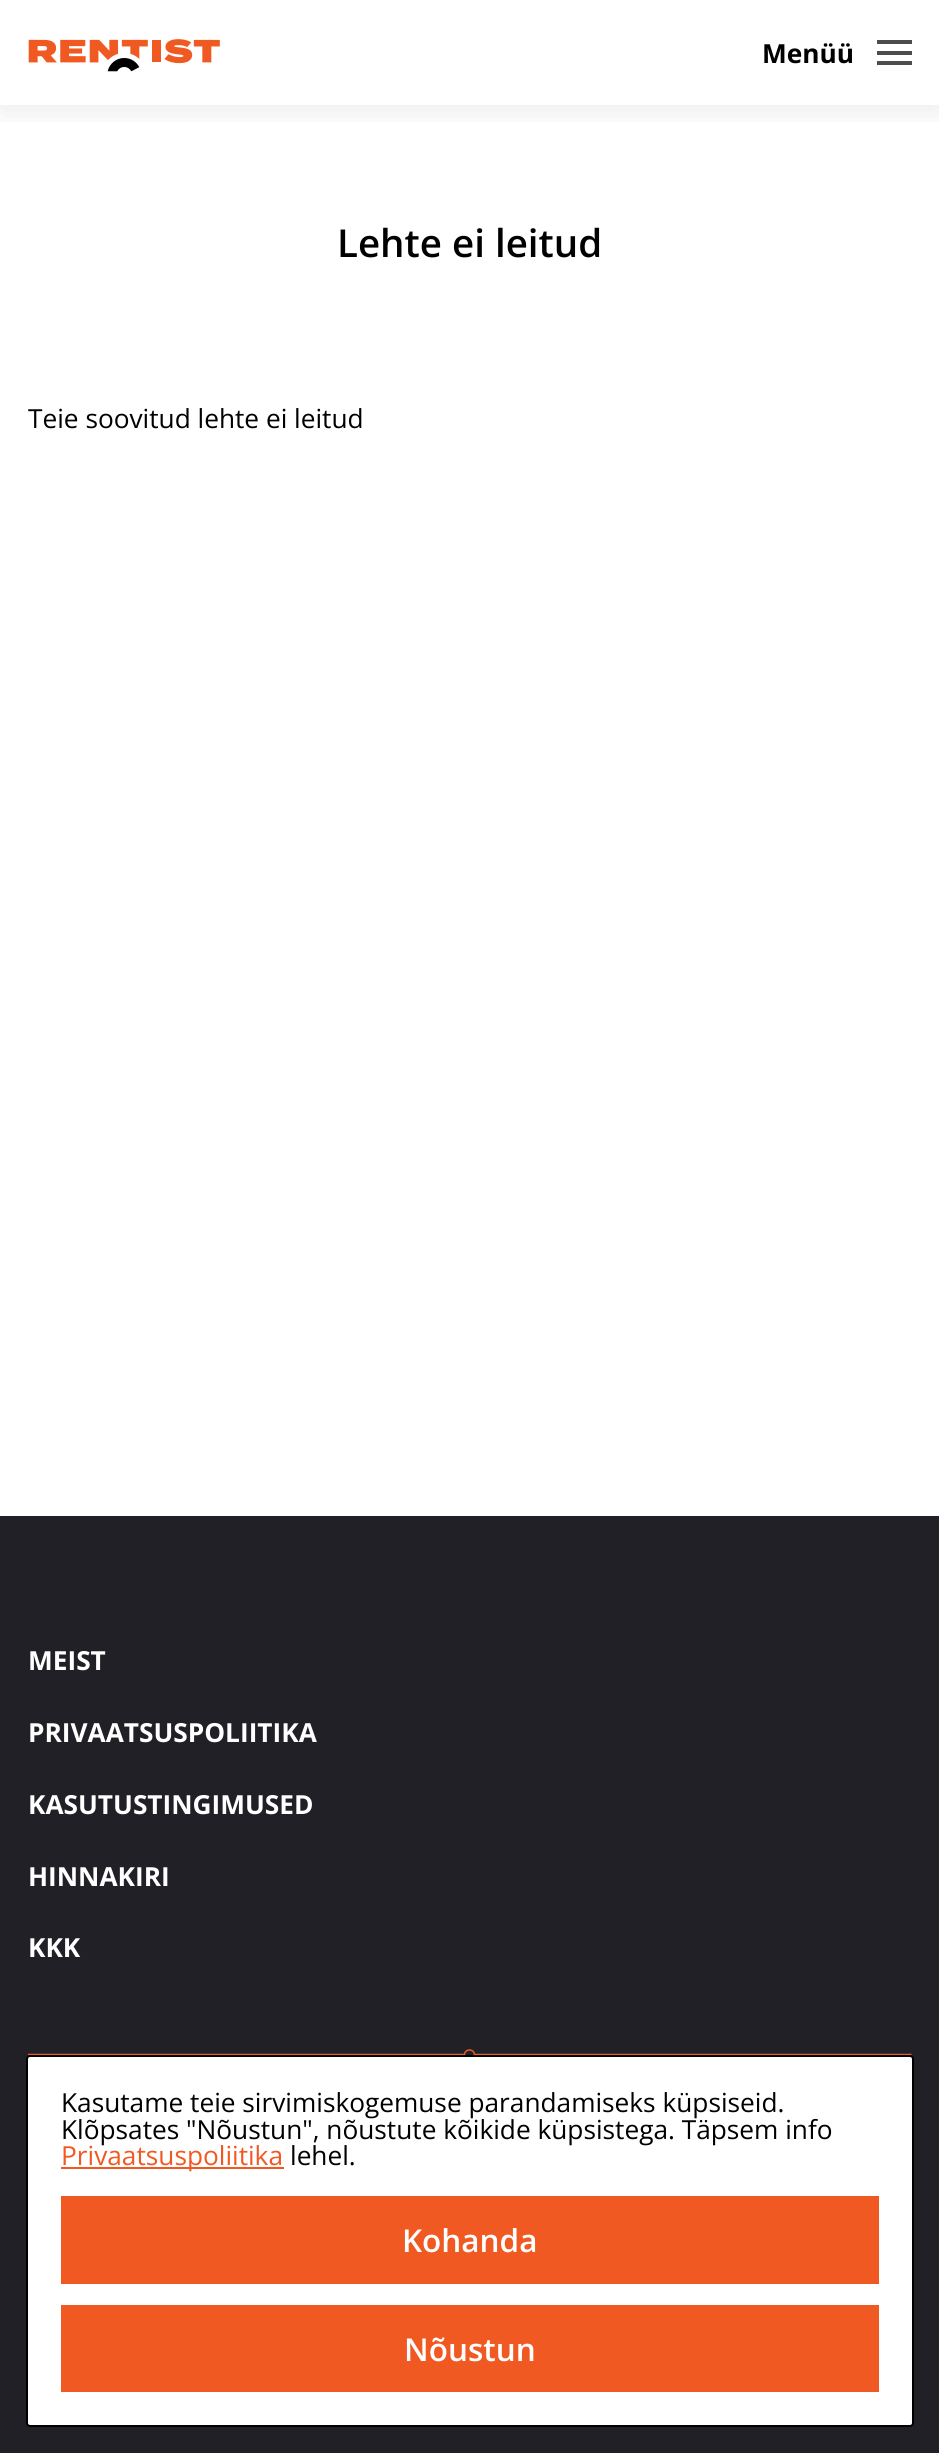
import math
import cairo

surface = cairo.ImageSurface(cairo.FORMAT_RGB24, 939, 2453)
ctx = cairo.Context(surface)
options = cairo.FontOptions()
options.set_hint_metrics(cairo.HINT_METRICS_OFF)
options.set_hint_style(cairo.HINT_STYLE_NONE)
ctx.set_font_options(options)
ctx.set_miter_limit(4)


def set_color(code):
    ctx.set_source_rgb(*(v / 255 for v in bytes.fromhex(code[-6:])))


def draw_text(x, y, s, family, size, color, bold=False, italic=False):
    ctx.select_font_face(family, cairo.FONT_SLANT_ITALIC if italic else cairo.FONT_SLANT_NORMAL, cairo.FONT_WEIGHT_BOLD if bold else cairo.FONT_WEIGHT_NORMAL)
    ctx.set_font_size(size)
    set_color(color)
    ctx.move_to(x, y)
    ctx.show_text(s)


def fill_rect(x, y, w, h, color):
    set_color(color)
    ctx.rectangle(x, y, w, h)
    ctx.fill()


def rounded_rect(x, y, w, h, r):
    ctx.new_sub_path()
    for i, (u, v) in enumerate([(x + w - r, y + h - r), (x + r, y + h - r), (x + r, y + r), (x + w - r, y + r)]):
        ctx.arc(u, v, r, i * math.pi / 2, (i + 1) * math.pi / 2)
    ctx.close_path()


def draw_shadow(x, y, w, h, r, blur, alpha):
    ctx.push_group_with_content(cairo.CONTENT_ALPHA)
    ctx.set_operator(cairo.OPERATOR_SOURCE)
    for i in range(15, -16, -2):
        e = blur * i / 6
        if min(w, h) + 2 * e > 0:
            ctx.set_source_rgba(0, 0, 0, alpha * math.erfc((i - 1) / 8.5) / 2)
            rounded_rect(x - e, y - e, w + 2 * e, h + 2 * e, max(0, min(r + e + blur * .6, min(w, h) / 2 + e)))
            ctx.fill()
    ctx.mask(ctx.pop_group())


def draw_image(path, x, y, w, h):
    ctx.save()
    ctx.set_source_surface(cairo.ImageSurface.create_from_png(path), x, y)
    ctx.rectangle(x, y, w, h)
    ctx.fill()
    ctx.restore()


set_color("#ffffff")
ctx.paint()
ctx.save()
ctx.rectangle(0, 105, 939, 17)
ctx.clip()
set_color("#000000")
draw_shadow(0, 4, 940, 105, 0, 17.5, 0.09)
ctx.restore()
draw_image("assets/img1.png", 28, 39, 192, 33)
draw_text(762, 63, "Menüü", "Open Sans", 26.25, "#000000", bold=True)
fill_rect(877, 51, 35, 4, "#4d4d4d")
fill_rect(877, 40, 35, 4, "#4d4d4d")
fill_rect(877, 61, 35, 4, "#4d4d4d")
draw_text(337, 257, "Lehte ei leitud", "Open Sans SemiBold", 38.5, "#000000")
draw_text(28, 428, "Teie soovitud lehte ei leitud", "Open Sans", 26.25, "#000000")
fill_rect(0, 1516, 939, 937, "#202026")
draw_text(28, 1670, "MEIST", "Open Sans", 26.25, "#ffffff", bold=True)
draw_text(28, 1742, "PRIVAATSUSPOLIITIKA", "Open Sans", 26.25, "#ffffff", bold=True)
draw_text(28, 1814, "KASUTUSTINGIMUSED", "Open Sans", 26.25, "#ffffff", bold=True)
draw_text(28, 1886, "HINNAKIRI", "Open Sans", 26.25, "#ffffff", bold=True)
draw_text(28, 1957, "KKK", "Open Sans", 26.25, "#ffffff", bold=True)
ctx.new_path()
ctx.move_to(28, 2054.5)
ctx.line_to(464.5, 2054.5)
ctx.move_to(474.5, 2054.5)
ctx.line_to(911.5, 2054.5)
set_color("#f05a22")
ctx.set_line_width(1.5)
ctx.stroke()
ctx.arc(469.5, 2055, 5, 0, 2 * math.pi)
ctx.stroke()
set_color("#ffffff")
rounded_rect(27, 2056, 886, 370, 3)
ctx.fill_preserve()
set_color("#000000")
ctx.set_line_width(2)
ctx.stroke()
draw_text(61, 2112, "Kasutame teie sirvimiskogemuse parandamiseks küpsiseid.", "Open Sans", 26.25, "#000000")
draw_text(61, 2139, "Klõpsates \"Nõustun\", nõustute kõikide küpsistega. Täpsem info", "Open Sans", 26.25, "#000000")
fill_rect(61, 2167, 223, 2, "#f05a22")
draw_text(61, 2165, "Privaatsuspoliitika", "Open Sans", 26.25, "#f05a22")
draw_text(290, 2165, "lehel.", "Open Sans", 26.25, "#000000")
fill_rect(61, 2196, 818, 88, "#f05a22")
draw_text(402, 2252, "Kohanda", "Open Sans SemiBold", 31.5, "#ffffff")
fill_rect(61, 2305, 818, 87, "#f05a22")
draw_text(404, 2361, "Nõustun", "Open Sans SemiBold", 31.5, "#ffffff")
surface.write_to_png("output.png")
